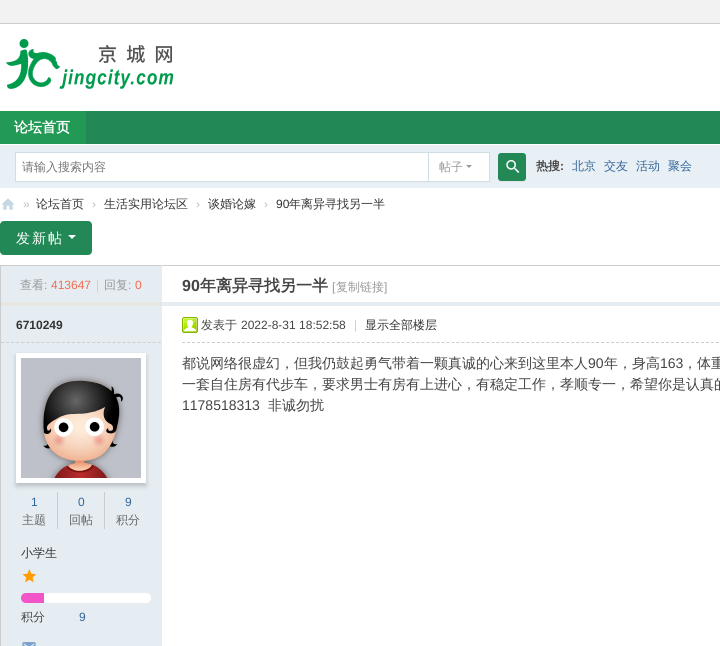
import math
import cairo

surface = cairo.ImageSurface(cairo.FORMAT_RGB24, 720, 646)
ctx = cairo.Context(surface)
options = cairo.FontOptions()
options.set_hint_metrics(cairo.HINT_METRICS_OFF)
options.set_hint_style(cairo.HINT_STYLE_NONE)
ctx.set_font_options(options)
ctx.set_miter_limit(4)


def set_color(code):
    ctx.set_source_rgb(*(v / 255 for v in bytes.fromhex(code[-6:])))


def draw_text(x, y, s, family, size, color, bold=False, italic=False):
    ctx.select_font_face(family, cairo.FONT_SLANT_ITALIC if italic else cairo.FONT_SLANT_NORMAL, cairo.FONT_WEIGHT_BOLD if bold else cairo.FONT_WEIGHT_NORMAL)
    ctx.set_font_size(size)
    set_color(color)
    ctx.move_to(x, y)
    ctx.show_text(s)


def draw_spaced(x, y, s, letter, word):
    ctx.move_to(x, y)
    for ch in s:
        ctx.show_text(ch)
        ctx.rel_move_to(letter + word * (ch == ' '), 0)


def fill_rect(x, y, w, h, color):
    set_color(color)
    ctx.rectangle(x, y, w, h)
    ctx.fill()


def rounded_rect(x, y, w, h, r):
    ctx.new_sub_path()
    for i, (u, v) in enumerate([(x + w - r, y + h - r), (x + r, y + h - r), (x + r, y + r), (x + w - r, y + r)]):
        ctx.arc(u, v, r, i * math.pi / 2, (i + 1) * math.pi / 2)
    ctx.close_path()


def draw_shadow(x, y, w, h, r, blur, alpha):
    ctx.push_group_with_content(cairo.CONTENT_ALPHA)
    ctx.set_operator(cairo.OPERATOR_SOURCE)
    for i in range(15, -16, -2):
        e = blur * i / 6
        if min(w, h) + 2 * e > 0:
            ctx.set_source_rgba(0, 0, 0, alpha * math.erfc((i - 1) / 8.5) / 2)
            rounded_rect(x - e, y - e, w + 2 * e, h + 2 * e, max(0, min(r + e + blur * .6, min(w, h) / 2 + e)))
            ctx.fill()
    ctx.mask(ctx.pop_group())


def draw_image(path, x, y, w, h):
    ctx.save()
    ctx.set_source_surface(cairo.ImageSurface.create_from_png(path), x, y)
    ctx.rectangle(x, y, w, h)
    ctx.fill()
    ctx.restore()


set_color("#ffffff")
ctx.paint()
fill_rect(0, 0, 720, 23, "#f2f2f2")
fill_rect(0, 23, 720, 1, "#cdcdcd")
draw_image("assets/img1.png", 6, 39, 168, 50)
fill_rect(86, 111, 634, 33, "#228855")
fill_rect(0, 111, 86, 33, "#229955")
draw_text(14, 132, "论坛首页", "WenQuanYi Zen Hei", 14, "#ffffff", bold=True)
fill_rect(0, 145, 720, 43, "#e8eff5")
fill_rect(427, 152, 63, 1, "#cfdee3")
fill_rect(489, 152, 1, 30, "#cfdee3")
fill_rect(427, 181, 63, 1, "#cfdee3")
set_color("#ffffff")
ctx.rectangle(15.5, 152.5, 413, 29)
ctx.fill_preserve()
set_color("#cfdee3")
ctx.set_line_width(1)
ctx.stroke()
draw_text(22, 171, "请输入搜索内容", "WenQuanYi Zen Hei Medium", 12, "#757575")
fill_rect(429, 153, 60, 28, "#ffffff")
draw_text(439, 171, "帖子", "WenQuanYi Zen Hei Medium", 12, "#999999")
ctx.new_path()
ctx.move_to(466, 165)
ctx.line_to(472, 165)
ctx.line_to(469, 168)
ctx.close_path()
ctx.fill()
set_color("#e5e5e5")
ctx.new_path()
ctx.move_to(498, 178)
ctx.curve_to(498, 182.5, 501, 182, 504.5, 182)
ctx.line_to(519.5, 182)
ctx.curve_to(523, 182, 526, 182.5, 526, 178)
ctx.curve_to(526, 179.5, 524.5, 181, 523, 181)
ctx.line_to(501, 181)
ctx.curve_to(499.5, 181, 498, 179.5, 498, 178)
ctx.close_path()
ctx.fill()
set_color("#228855")
rounded_rect(498, 153, 28, 28, 3)
ctx.fill()
draw_image("assets/img2.png", 506, 160, 14, 13)
draw_text(536, 170, "热搜", "WenQuanYi Zen Hei", 12, "#444444", bold=True)
draw_text(560, 170, ":", "Liberation Sans", 12, "#444444", bold=True)
draw_text(572, 170, "北京", "WenQuanYi Zen Hei Medium", 12, "#336699")
draw_text(604, 170, "交友", "WenQuanYi Zen Hei Medium", 12, "#336699")
draw_text(636, 170, "活动", "WenQuanYi Zen Hei Medium", 12, "#336699")
draw_text(668, 170, "聚会", "WenQuanYi Zen Hei Medium", 12, "#336699")
draw_image("assets/img3.png", 1, 198, 14, 12)
draw_text(23, 208, "»", "Liberation Sans", 12, "#bdbdbd")
draw_text(36, 208, "论坛首页", "WenQuanYi Zen Hei Medium", 12, "#333333")
draw_text(92, 208, "›", "Liberation Sans", 12, "#bdbdbd")
draw_text(104, 208, "生活实用论坛区", "WenQuanYi Zen Hei Medium", 12, "#333333")
draw_text(196, 208, "›", "Liberation Sans", 12, "#bdbdbd")
draw_text(208, 208, "谈婚论嫁", "WenQuanYi Zen Hei Medium", 12, "#333333")
draw_text(264, 208, "›", "Liberation Sans", 12, "#bdbdbd")
draw_text(276, 208, "90", "Liberation Sans", 12, "#333333")
draw_text(289, 208, "年离异寻找另一半", "WenQuanYi Zen Hei Medium", 12, "#333333")
set_color("#228855")
rounded_rect(0, 221, 92, 34, 4)
ctx.fill()
ctx.set_font_size(14)
set_color("#ffffff")
draw_spaced(16, 243, "发新帖", 2, 0)
ctx.new_path()
ctx.move_to(68, 235)
ctx.line_to(76, 235)
ctx.line_to(72, 239)
ctx.close_path()
ctx.fill()
ctx.rectangle(0.5, 265.5, 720, 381)
set_color("#cdcdcd")
ctx.stroke()
fill_rect(161, 265, 1, 1, "#e6e7e1")
fill_rect(1, 266, 161, 36, "#e5edf2")
draw_text(20, 289, "查看", "WenQuanYi Zen Hei Medium", 12, "#999999")
draw_text(44, 289, ":", "Liberation Sans", 12, "#999999")
draw_text(51, 289, "413647", "Liberation Sans", 12, "#f26c4f")
draw_text(96, 289, "|", "Liberation Sans", 12, "#cccccc")
draw_text(104, 289, "回复", "WenQuanYi Zen Hei Medium", 12, "#999999")
draw_text(128, 289, ":", "Liberation Sans", 12, "#999999")
draw_text(135, 289, "0", "Liberation Sans", 12, "#f26c4f")
draw_text(182, 291, "90", "Liberation Sans", 16, "#444444", bold=True)
draw_text(200, 291, "年离异寻找另一半", "WenQuanYi Zen Hei", 16, "#444444", bold=True)
draw_text(332, 291, "[", "Liberation Sans", 12, "#999999")
draw_text(336, 291, "复制链接", "WenQuanYi Zen Hei Medium", 12, "#999999")
draw_text(384, 291, "]", "Liberation Sans", 12, "#999999")
fill_rect(1, 302, 161, 4, "#e6e7e1")
fill_rect(162, 302, 558, 4, "#e5edf2")
fill_rect(1, 306, 161, 340, "#e5edf2")
ctx.new_path()
ctx.move_to(1, 342.5)
ctx.line_to(161, 342.5)
set_color("#cdcdcd")
ctx.set_dash([3, 2.06])
ctx.stroke()
draw_text(16, 329, "6710249", "Liberation Sans", 12, "#333333", bold=True)
fill_rect(57, 492, 1, 37, "#cccccc")
fill_rect(104, 492, 1, 37, "#cccccc")
set_color("#000000")
draw_shadow(16, 356, 130, 130, 0, 2.5, 0.2)
fill_rect(16, 353, 130, 130, "#ffffff")
draw_image("assets/img4.png", 21, 358, 120, 120)
draw_text(31, 506, "1", "Liberation Sans", 12, "#336699")
draw_text(22, 524, "主题", "WenQuanYi Zen Hei Medium", 12, "#666666")
draw_text(78, 506, "0", "Liberation Sans", 12, "#336699")
draw_text(69, 524, "回帖", "WenQuanYi Zen Hei Medium", 12, "#666666")
draw_text(125, 506, "9", "Liberation Sans", 12, "#336699")
draw_text(116, 524, "积分", "WenQuanYi Zen Hei Medium", 12, "#666666")
draw_text(21, 557, "小学生", "WenQuanYi Zen Hei Medium", 12, "#333333")
draw_image("assets/img5.png", 22, 569, 15, 14)
set_color("#ffffff")
rounded_rect(21, 593, 130, 10, 5)
ctx.fill()
set_color("#f155c8")
ctx.new_path()
ctx.move_to(26, 593)
ctx.line_to(44, 593)
ctx.line_to(44, 603)
ctx.line_to(26, 603)
ctx.curve_to(23, 603, 21, 601, 21, 598)
ctx.curve_to(21, 595, 23, 593, 26, 593)
ctx.close_path()
ctx.fill()
draw_text(21, 621, "积分", "WenQuanYi Zen Hei Medium", 12, "#444444")
draw_text(79, 621, "9", "Liberation Sans", 12, "#336699")
draw_image("assets/img6.png", 22, 642, 14, 4)
ctx.new_path()
ctx.move_to(182, 342.5)
ctx.line_to(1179, 342.5)
set_color("#cdcdcd")
ctx.set_dash([3, 1.99])
ctx.stroke()
draw_image("assets/img7.png", 182, 317, 16, 16)
draw_text(201, 329, "发表于", "WenQuanYi Zen Hei Medium", 12, "#444444")
draw_text(241, 329, "2022-8-31 18:52:58", "Liberation Sans", 12, "#444444")
draw_text(354, 329, "|", "Liberation Sans", 12, "#cccccc")
draw_text(365, 329, "显示全部楼层", "WenQuanYi Zen Hei Medium", 12, "#333333")
draw_text(182, 368, "都说网络很虚幻，但我仍鼓起勇气带着一颗真诚的心来到这里本人", "WenQuanYi Zen Hei Medium", 14, "#444444")
draw_text(588, 368, "90", "Liberation Sans", 14, "#444444")
draw_text(604, 368, "年，身高", "WenQuanYi Zen Hei Medium", 14, "#444444")
draw_text(660, 368, "163", "Liberation Sans", 14, "#444444")
draw_text(683, 368, "，体重", "WenQuanYi Zen Hei Medium", 14, "#444444")
draw_text(182, 389, "一套自住房有代步车，要求男士有房有上进心，有稳定工作，孝顺专一，希望你是认真的", "WenQuanYi Zen Hei Medium", 14, "#444444")
draw_text(182, 410, "1178518313", "Liberation Sans", 14, "#444444")
draw_text(268, 410, "非诚勿扰", "WenQuanYi Zen Hei Medium", 14, "#444444")
surface.write_to_png("output.png")
